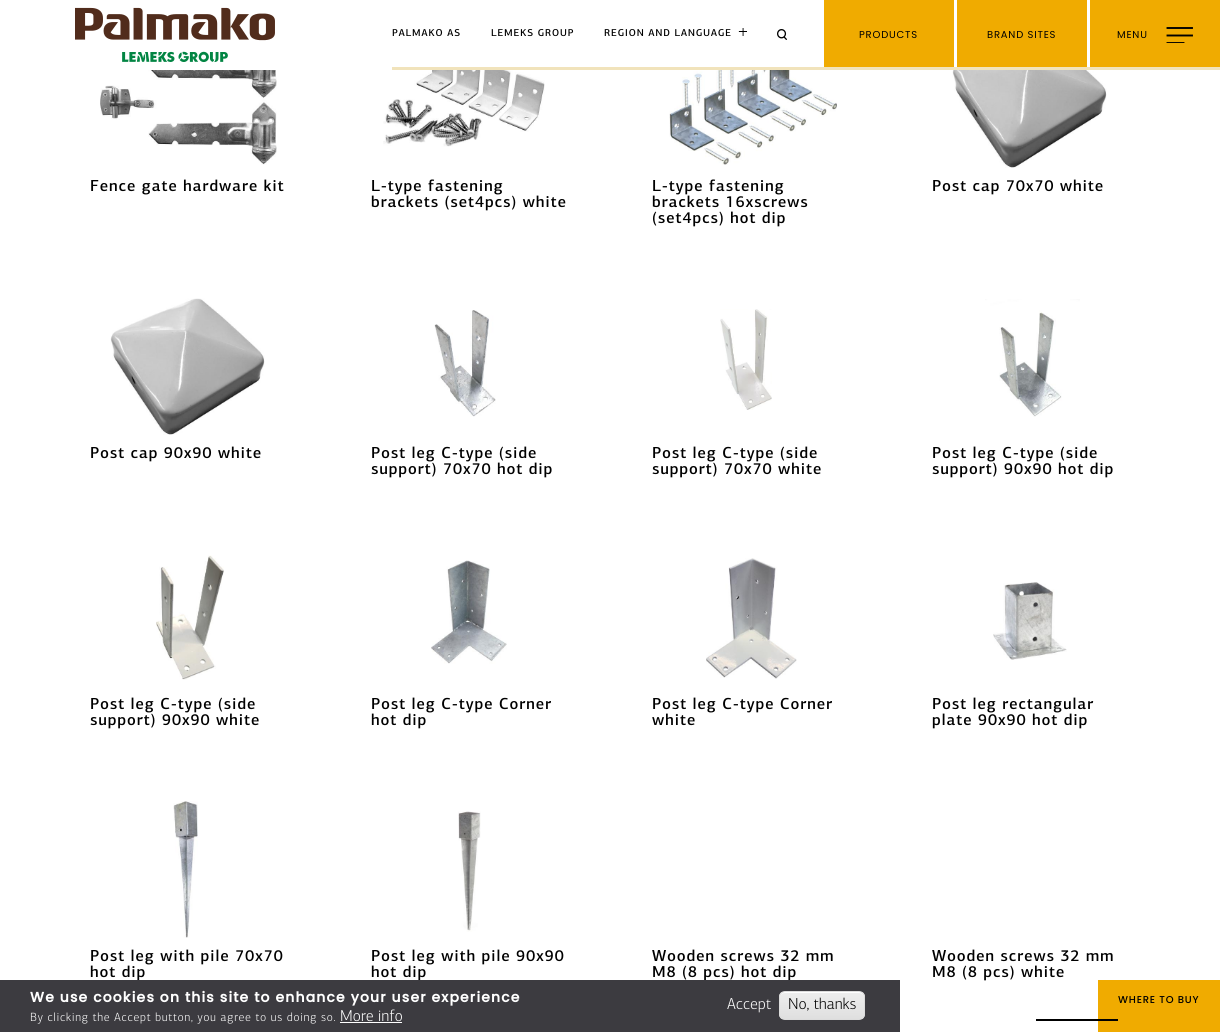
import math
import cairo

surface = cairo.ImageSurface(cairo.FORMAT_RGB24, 1220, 1032)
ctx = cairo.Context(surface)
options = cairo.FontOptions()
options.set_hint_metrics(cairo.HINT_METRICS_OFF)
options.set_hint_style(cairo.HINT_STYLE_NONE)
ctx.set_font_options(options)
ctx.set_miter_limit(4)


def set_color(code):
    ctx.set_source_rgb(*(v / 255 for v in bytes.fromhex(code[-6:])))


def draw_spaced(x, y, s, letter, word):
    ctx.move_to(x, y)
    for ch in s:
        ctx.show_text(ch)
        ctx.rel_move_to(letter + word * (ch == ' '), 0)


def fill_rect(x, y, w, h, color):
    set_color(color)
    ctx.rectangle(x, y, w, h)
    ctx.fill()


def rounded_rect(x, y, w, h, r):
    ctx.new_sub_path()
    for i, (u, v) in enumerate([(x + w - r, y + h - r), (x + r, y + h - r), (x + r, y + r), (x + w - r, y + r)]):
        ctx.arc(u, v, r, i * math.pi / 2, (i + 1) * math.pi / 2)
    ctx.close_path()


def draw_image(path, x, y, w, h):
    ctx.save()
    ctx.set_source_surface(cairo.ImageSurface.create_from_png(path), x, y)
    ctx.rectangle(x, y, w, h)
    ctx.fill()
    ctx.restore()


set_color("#ffffff")
ctx.paint()
fill_rect(0, 980, 900, 52, "#3c3b40")
ctx.select_font_face("Poppins", cairo.FONT_SLANT_NORMAL, cairo.FONT_WEIGHT_BOLD)
ctx.set_font_size(14)
set_color("#ffffff")
draw_spaced(30, 1002, "We use cookies on this site to enhance your user experience", 1.15, 0)
draw_image("assets/img1.png", 30, 1012, 305, 12)
draw_image("assets/img2.png", 341, 1009, 61, 13)
fill_rect(340, 1022, 62, 1, "#ffffff")
draw_image("assets/img3.png", 727, 998, 44, 15)
ctx.save()
rounded_rect(779, 991, 86, 29, 6)
ctx.clip()
gradient = cairo.LinearGradient(822, 992, 822, 1019)
gradient.add_color_stop_rgba(0.05, 0.929, 0.929, 0.929, 1)
gradient.add_color_stop_rgba(1, 0.875, 0.875, 0.875, 1)
ctx.set_source(gradient)
ctx.rectangle(779, 992, 86, 27)
ctx.fill()
ctx.restore()
ctx.new_path()
ctx.move_to(785, 993)
ctx.line_to(859, 993)
ctx.curve_to(862, 993, 864, 995, 864, 998)
ctx.curve_to(864, 989, 852, 992, 847, 992)
ctx.line_to(797, 992)
ctx.curve_to(792, 992, 780, 989, 780, 998)
ctx.curve_to(780, 995, 782, 993, 785, 993)
ctx.close_path()
ctx.fill()
rounded_rect(779.5, 991.5, 85, 28, 5.5)
set_color("#dcdcdc")
ctx.set_line_width(1)
ctx.stroke()
draw_image("assets/img4.png", 789, 997, 67, 14)
draw_image("assets/img5.png", 75, 7, 200, 56)
draw_image("assets/img6.png", 392, 29, 68, 8)
draw_image("assets/img7.png", 491, 29, 83, 8)
draw_image("assets/img8.png", 604, 29, 127, 8)
draw_image("assets/img9.png", 738, 28, 9, 8)
draw_image("assets/img10.png", 777, 29, 10, 11)
fill_rect(824, 0, 130, 67, "#f0ab00")
ctx.select_font_face("Poppins")
ctx.set_font_size(10)
set_color("#000000")
draw_spaced(859, 38, "PRODUCTS", 0.8, 0)
fill_rect(957, 0, 130, 67, "#f0ab00")
set_color("#000000")
draw_spaced(987, 38, "BRAND SITES", 0.8, 0)
fill_rect(1090, 0, 130, 67, "#f0ab00")
set_color("#000000")
draw_spaced(1117, 38, "MENU", 0.8, 0)
ctx.save()
ctx.rectangle(1166, 27, 27, 16)
ctx.clip()
ctx.new_path()
ctx.move_to(1167.5, 28)
ctx.line_to(1192, 28)
ctx.move_to(1167.5, 35.5)
ctx.line_to(1192, 35.5)
ctx.move_to(1167.5, 43)
ctx.line_to(1183.5, 43)
ctx.set_line_width(1.9)
ctx.set_line_cap(cairo.LINE_CAP_SQUARE)
ctx.stroke()
ctx.restore()
fill_rect(392, 67, 828, 3, "#f1e3bb")
draw_image("assets/img11.png", 100, 70, 177, 95)
draw_image("assets/img12.png", 91, 179, 193, 16)
draw_image("assets/img13.png", 383, 70, 162, 77)
draw_image("assets/img14.png", 372, 179, 131, 16)
draw_image("assets/img15.png", 371, 195, 195, 16)
draw_image("assets/img16.png", 669, 70, 168, 95)
draw_image("assets/img14.png", 653, 179, 131, 16)
draw_image("assets/img17.png", 652, 195, 156, 13)
draw_image("assets/img18.png", 653, 211, 132, 16)
draw_image("assets/img19.png", 952, 70, 155, 98)
draw_image("assets/img20.png", 933, 179, 170, 16)
draw_image("assets/img21.png", 110, 298, 155, 137)
draw_image("assets/img22.png", 91, 446, 170, 16)
draw_image("assets/img23.png", 434, 310, 62, 107)
draw_image("assets/img24.png", 372, 446, 164, 16)
draw_image("assets/img25.png", 371, 462, 181, 16)
draw_image("assets/img26.png", 720, 309, 52, 101)
draw_image("assets/img24.png", 653, 446, 164, 16)
draw_image("assets/img27.png", 652, 462, 169, 16)
draw_image("assets/img28.png", 985, 299, 95, 118)
draw_image("assets/img24.png", 933, 446, 164, 16)
draw_image("assets/img29.png", 932, 462, 181, 16)
draw_image("assets/img30.png", 156, 555, 68, 125)
draw_image("assets/img24.png", 91, 697, 164, 16)
draw_image("assets/img31.png", 90, 713, 169, 16)
draw_image("assets/img32.png", 431, 560, 76, 104)
draw_image("assets/img33.png", 372, 697, 179, 16)
draw_image("assets/img34.png", 371, 713, 55, 16)
draw_image("assets/img35.png", 706, 558, 91, 121)
draw_image("assets/img33.png", 653, 697, 179, 16)
draw_image("assets/img36.png", 652, 713, 43, 13)
draw_image("assets/img37.png", 993, 582, 74, 78)
draw_image("assets/img38.png", 933, 697, 161, 16)
draw_image("assets/img39.png", 932, 713, 155, 16)
draw_image("assets/img40.png", 173, 801, 25, 137)
draw_image("assets/img41.png", 91, 949, 192, 16)
draw_image("assets/img42.png", 90, 965, 55, 15)
draw_image("assets/img43.png", 458, 811, 23, 121)
draw_image("assets/img44.png", 372, 949, 192, 16)
draw_image("assets/img42.png", 371, 965, 55, 15)
draw_image("assets/img45.png", 652, 949, 181, 13)
draw_image("assets/img46.png", 653, 965, 143, 15)
draw_image("assets/img45.png", 932, 949, 181, 13)
draw_image("assets/img47.png", 933, 965, 131, 16)
fill_rect(1098, 980, 122, 52, "#f0ab00")
ctx.select_font_face("Poppins Medium")
set_color("#000000")
draw_spaced(1118, 1003, "WHERE TO BUY", 0.8, 0)
fill_rect(1036, 1019, 82, 2, "#000000")
surface.write_to_png("output.png")
